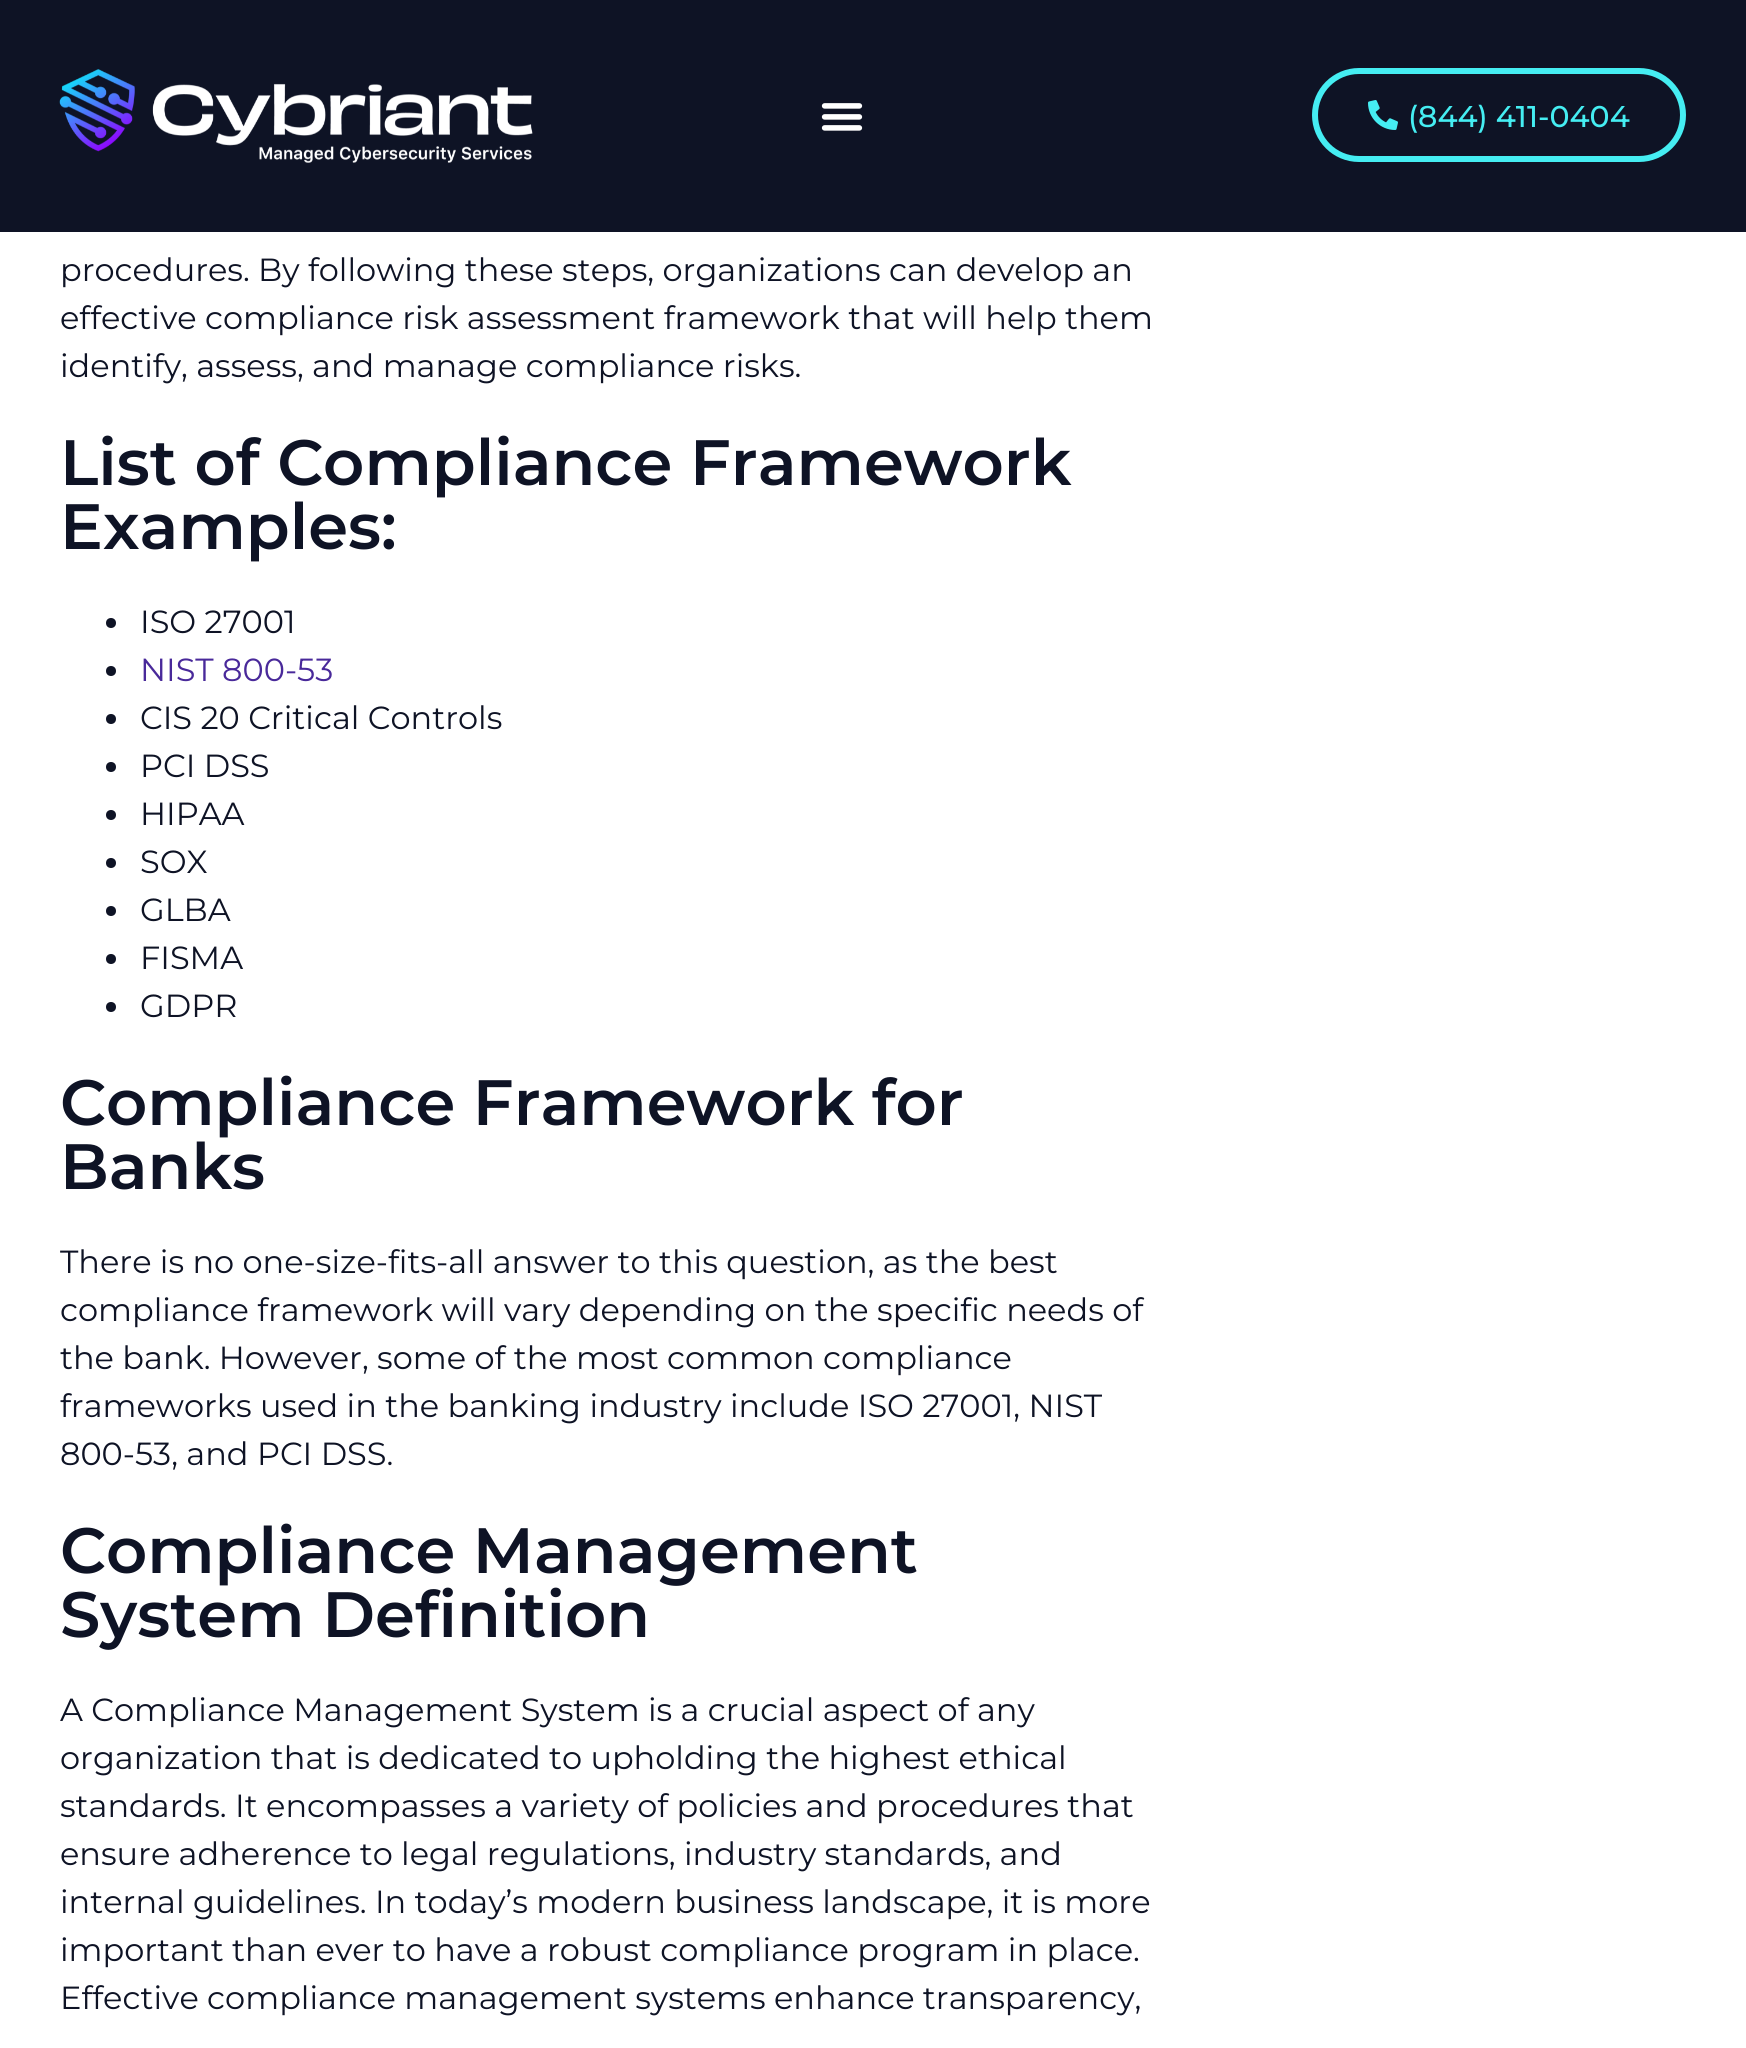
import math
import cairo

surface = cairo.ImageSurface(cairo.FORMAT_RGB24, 1746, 2048)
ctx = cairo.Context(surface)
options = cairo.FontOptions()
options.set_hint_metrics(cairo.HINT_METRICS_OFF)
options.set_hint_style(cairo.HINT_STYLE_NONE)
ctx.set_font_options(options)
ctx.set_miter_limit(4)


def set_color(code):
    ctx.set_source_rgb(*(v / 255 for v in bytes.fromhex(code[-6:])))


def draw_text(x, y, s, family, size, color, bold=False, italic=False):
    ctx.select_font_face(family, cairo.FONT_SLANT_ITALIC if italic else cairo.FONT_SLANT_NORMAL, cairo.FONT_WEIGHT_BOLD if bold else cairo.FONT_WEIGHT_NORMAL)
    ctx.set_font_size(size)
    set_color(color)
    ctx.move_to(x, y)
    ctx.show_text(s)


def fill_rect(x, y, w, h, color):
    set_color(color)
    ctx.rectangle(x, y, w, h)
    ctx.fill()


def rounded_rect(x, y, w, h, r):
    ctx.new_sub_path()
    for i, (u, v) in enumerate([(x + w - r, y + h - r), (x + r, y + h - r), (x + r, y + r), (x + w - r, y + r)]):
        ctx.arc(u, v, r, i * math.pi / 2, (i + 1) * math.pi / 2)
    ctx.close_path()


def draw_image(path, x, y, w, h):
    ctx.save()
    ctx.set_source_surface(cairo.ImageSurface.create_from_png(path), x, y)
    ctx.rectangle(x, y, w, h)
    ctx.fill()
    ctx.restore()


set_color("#ffffff")
ctx.paint()
fill_rect(0, 0, 1746, 232, "#0e1325")
draw_image("assets/img1.png", 59, 69, 474, 94)
draw_image("assets/img2.png", 821, 103, 42, 28)
rounded_rect(1315, 71, 368, 88, 44)
set_color("#45edf2")
ctx.set_line_width(6)
ctx.stroke()
draw_image("assets/img3.png", 1368, 100, 30, 30)
draw_text(1408, 127, "(844) 411-0404", "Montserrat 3 Thin", 30, "#45edf2")
draw_text(60, 281, "procedures. By following these steps, organizations can develop an", "Montserrat Thin", 32, "#0e1325")
draw_text(60, 329, "effective compliance risk assessment framework that will help them", "Montserrat Thin", 32, "#0e1325")
draw_text(60, 377, "identify, assess, and manage compliance risks.", "Montserrat Thin", 32, "#0e1325")
draw_text(60, 485, "List of Compliance Framework", "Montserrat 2 Thin", 64, "#0e1325")
draw_text(60, 549, "Examples:", "Montserrat 2 Thin", 64, "#0e1325")
ctx.new_path()
ctx.arc(111, 623, 5, 0, 2 * math.pi)
ctx.fill()
draw_text(140, 633, "ISO 27001", "Montserrat Thin", 32, "#0e1325")
ctx.new_path()
ctx.arc(111, 671, 5, 0, 2 * math.pi)
ctx.fill()
draw_text(140, 681, "NIST 800-53", "Montserrat Thin", 32, "#49299a")
set_color("#0e1325")
ctx.new_path()
ctx.arc(111, 719, 5, 0, 2 * math.pi)
ctx.fill()
draw_text(140, 729, "CIS 20 Critical Controls", "Montserrat Thin", 32, "#0e1325")
ctx.new_path()
ctx.arc(111, 767, 5, 0, 2 * math.pi)
ctx.fill()
draw_text(140, 777, "PCI DSS", "Montserrat Thin", 32, "#0e1325")
ctx.new_path()
ctx.arc(111, 815, 5, 0, 2 * math.pi)
ctx.fill()
draw_text(140, 825, "HIPAA", "Montserrat Thin", 32, "#0e1325")
ctx.new_path()
ctx.arc(111, 863, 5, 0, 2 * math.pi)
ctx.fill()
draw_text(140, 873, "SOX", "Montserrat Thin", 32, "#0e1325")
ctx.new_path()
ctx.arc(111, 911, 5, 0, 2 * math.pi)
ctx.fill()
draw_text(140, 921, "GLBA", "Montserrat Thin", 32, "#0e1325")
ctx.new_path()
ctx.arc(111, 959, 5, 0, 2 * math.pi)
ctx.fill()
draw_text(140, 969, "FISMA", "Montserrat Thin", 32, "#0e1325")
ctx.new_path()
ctx.arc(111, 1007, 5, 0, 2 * math.pi)
ctx.fill()
draw_text(140, 1017, "GDPR", "Montserrat Thin", 32, "#0e1325")
draw_text(60, 1125, "Compliance Framework for", "Montserrat 2 Thin", 64, "#0e1325")
draw_text(60, 1189, "Banks", "Montserrat 2 Thin", 64, "#0e1325")
draw_text(60, 1273, "There is no one-size-fits-all answer to this question, as the best", "Montserrat Thin", 32, "#0e1325")
draw_text(60, 1321, "compliance framework will vary depending on the specific needs of", "Montserrat Thin", 32, "#0e1325")
draw_text(60, 1369, "the bank. However, some of the most common compliance", "Montserrat Thin", 32, "#0e1325")
draw_text(60, 1417, "frameworks used in the banking industry include ISO 27001, NIST", "Montserrat Thin", 32, "#0e1325")
draw_text(60, 1465, "800-53, and PCI DSS.", "Montserrat Thin", 32, "#0e1325")
draw_text(60, 1573, "Compliance Management", "Montserrat 2 Thin", 64, "#0e1325")
draw_text(60, 1637, "System Definition", "Montserrat 2 Thin", 64, "#0e1325")
draw_text(60, 1721, "A Compliance Management System is a crucial aspect of any", "Montserrat Thin", 32, "#0e1325")
draw_text(60, 1769, "organization that is dedicated to upholding the highest ethical", "Montserrat Thin", 32, "#0e1325")
draw_text(60, 1817, "standards. It encompasses a variety of policies and procedures that", "Montserrat Thin", 32, "#0e1325")
draw_text(60, 1865, "ensure adherence to legal regulations, industry standards, and", "Montserrat Thin", 32, "#0e1325")
draw_text(60, 1913, "internal guidelines. In today’s modern business landscape, it is more", "Montserrat Thin", 32, "#0e1325")
draw_text(60, 1961, "important than ever to have a robust compliance program in place.", "Montserrat Thin", 32, "#0e1325")
draw_text(60, 2009, "Effective compliance management systems enhance transparency,", "Montserrat Thin", 32, "#0e1325")
surface.write_to_png("output.png")
